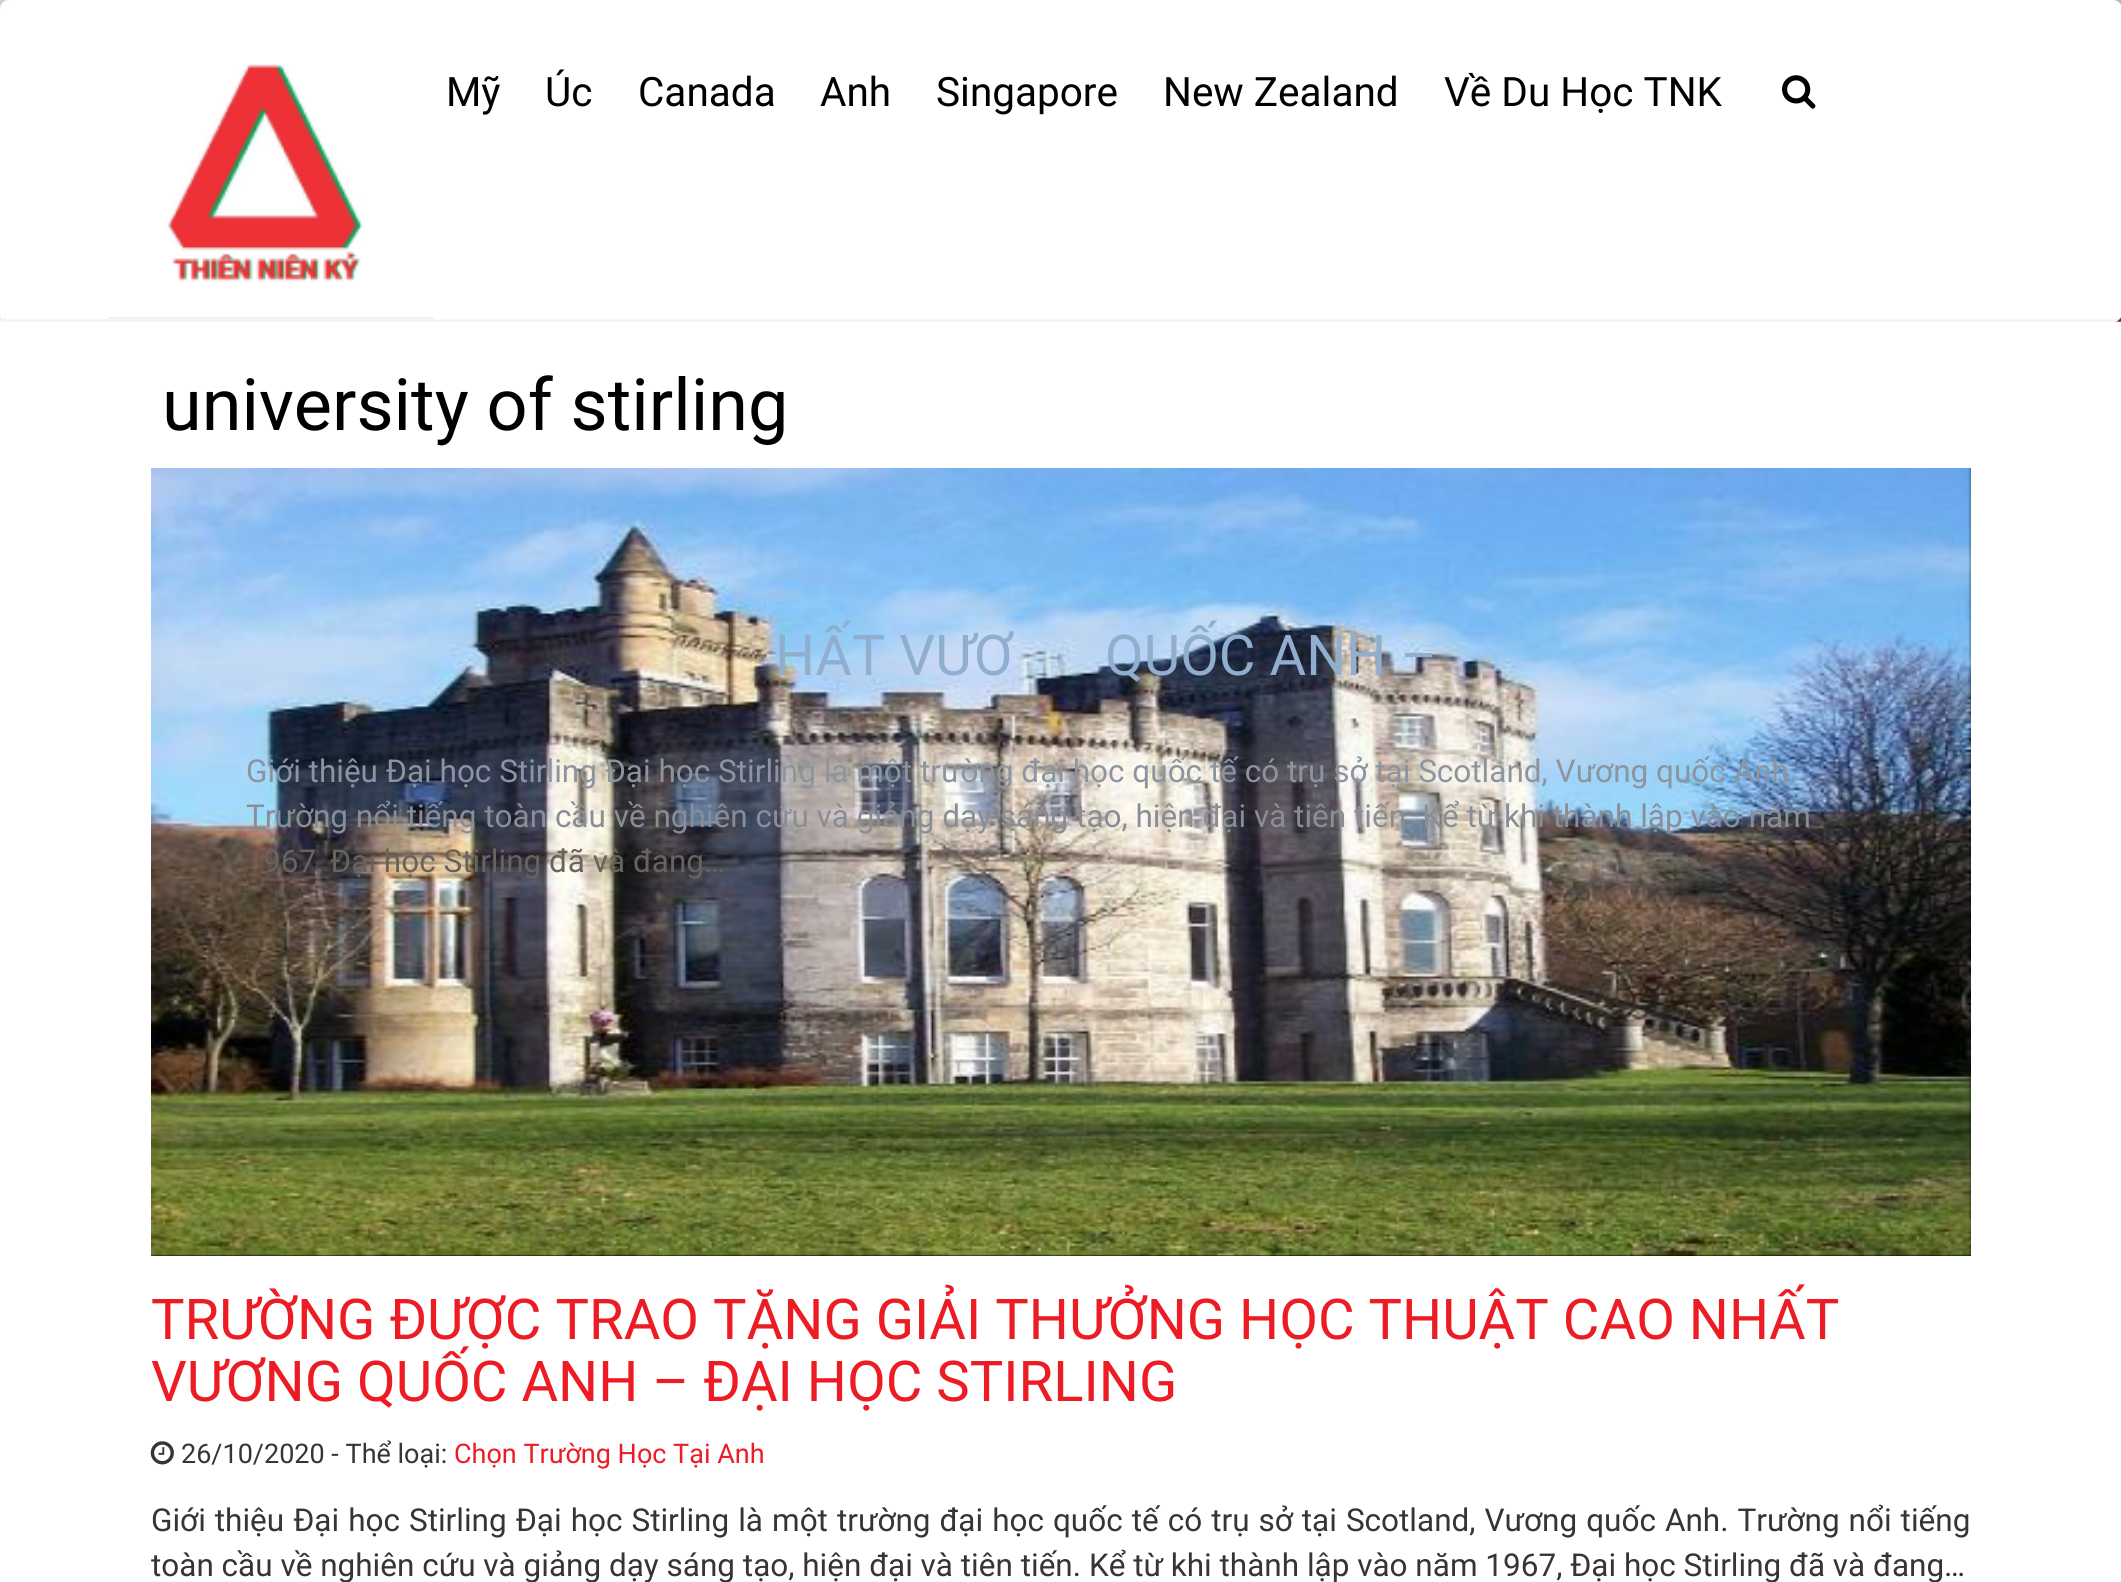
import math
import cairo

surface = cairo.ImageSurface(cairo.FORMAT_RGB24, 2121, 1582)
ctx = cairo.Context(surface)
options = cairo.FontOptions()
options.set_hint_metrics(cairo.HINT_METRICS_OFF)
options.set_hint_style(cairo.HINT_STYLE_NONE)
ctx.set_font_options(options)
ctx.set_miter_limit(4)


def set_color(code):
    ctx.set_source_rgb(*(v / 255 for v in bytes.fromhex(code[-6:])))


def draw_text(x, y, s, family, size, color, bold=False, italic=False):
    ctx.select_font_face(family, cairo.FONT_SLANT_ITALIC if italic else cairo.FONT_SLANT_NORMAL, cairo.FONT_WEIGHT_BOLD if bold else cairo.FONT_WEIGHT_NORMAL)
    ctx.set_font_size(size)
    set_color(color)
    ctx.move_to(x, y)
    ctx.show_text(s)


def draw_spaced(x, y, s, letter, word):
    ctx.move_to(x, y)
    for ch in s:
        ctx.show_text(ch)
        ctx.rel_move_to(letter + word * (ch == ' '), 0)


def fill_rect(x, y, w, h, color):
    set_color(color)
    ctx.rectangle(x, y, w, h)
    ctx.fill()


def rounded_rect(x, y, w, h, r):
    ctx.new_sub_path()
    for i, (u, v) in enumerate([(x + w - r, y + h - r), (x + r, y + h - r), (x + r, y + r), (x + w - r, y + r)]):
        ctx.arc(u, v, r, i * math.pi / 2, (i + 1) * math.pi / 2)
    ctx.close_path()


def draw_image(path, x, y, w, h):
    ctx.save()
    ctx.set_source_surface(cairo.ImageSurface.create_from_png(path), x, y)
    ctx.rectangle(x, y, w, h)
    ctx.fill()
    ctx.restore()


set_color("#ffffff")
ctx.paint()
draw_image("assets/img1.png", 0, 0, 2121, 322)
set_color("#ffffff")
rounded_rect(0, 0, 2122, 322, 9)
ctx.fill()
ctx.new_path()
ctx.move_to(2118.5, 318.5)
ctx.curve_to(2117, 320, 2115, 320.5, 2113, 320.5)
ctx.line_to(9, 320.5)
ctx.curve_to(7, 320.5, 5, 320, 3.5, 318.5)
set_color("#f2f2f2")
ctx.set_line_width(2.2)
ctx.stroke()
fill_rect(108, 317, 326, 2, "#f2f2f2")
draw_image("assets/img2.png", 165, 64, 200, 218)
draw_text(446, 106, "Mỹ", "Roboto", 40.5, "#000000")
draw_text(545, 106, "Úc", "Roboto", 40.5, "#000000")
draw_text(638, 106, "Canada", "Roboto", 40.5, "#000000")
draw_text(820, 106, "Anh", "Roboto", 40.5, "#000000")
draw_text(936, 106, "Singapore", "Roboto", 40.5, "#000000")
draw_text(1163, 106, "New Zealand", "Roboto", 40.5, "#000000")
draw_text(1444, 106, "Về Du Học TNK", "Roboto", 40.5, "#000000")
draw_image("assets/img3.png", 1782, 75, 34, 34)
draw_text(162, 430, "university of stirling", "Roboto", 72, "#000000")
fill_rect(151, 468, 1820, 788, "#000000")
draw_image("assets/img4.png", 151, 468, 1820, 788)
draw_text(775, 675, "HẤT VƯƠ", "Roboto", 56.25, "#90aece")
draw_text(1105, 675, "QUỐC ANH –", "Roboto", 56.25, "#90aece")
draw_text(246, 782, "Giới thiệu Đại học Stirling Đại học Stirling là một trường đại học quốc tế có trụ sở tại Scotland, Vương quốc Anh.", "Roboto", 31.5, "#8c959f")
draw_text(246, 827, "Trường nổi tiếng toàn cầu về nghiên cứu và giảng dạy sáng tạo, hiện đại và tiên tiến. Kể từ khi thành lập vào năm", "Roboto", 31.5, "#898d95")
draw_text(263, 872, "967, Đại học Stirling đã và đang…", "Roboto", 31.5, "#6a625c")
draw_text(151, 1339, "TRƯỜNG ĐƯỢC TRAO TẶNG GIẢI THƯỞNG HỌC THUẬT CAO NHẤT", "Roboto", 56.25, "#ed1c24")
draw_text(151, 1401, "VƯƠNG QUỐC ANH – ĐẠI HỌC STIRLING", "Roboto", 56.25, "#ed1c24")
draw_image("assets/img5.png", 150, 1441, 24, 24)
draw_text(181, 1463, "26/10/2020 - Thể loại:", "Roboto", 27, "#353535")
draw_text(454, 1463, "Chọn Trường Học Tại Anh", "Roboto", 27, "#ed1c24")
ctx.set_font_size(31.5)
set_color("#353535")
draw_spaced(151, 1531, "Giới thiệu Đại học Stirling Đại học Stirling là một trường đại học quốc tế có trụ sở tại Scotland, Vương quốc Anh. Trường nổi tiếng", 0, 1.2)
draw_text(151, 1576, "toàn cầu về nghiên cứu và giảng dạy sáng tạo, hiện đại và tiên tiến. Kể từ khi thành lập vào năm 1967, Đại học Stirling đã và đang…", "Roboto", 31.5, "#353535")
surface.write_to_png("output.png")
